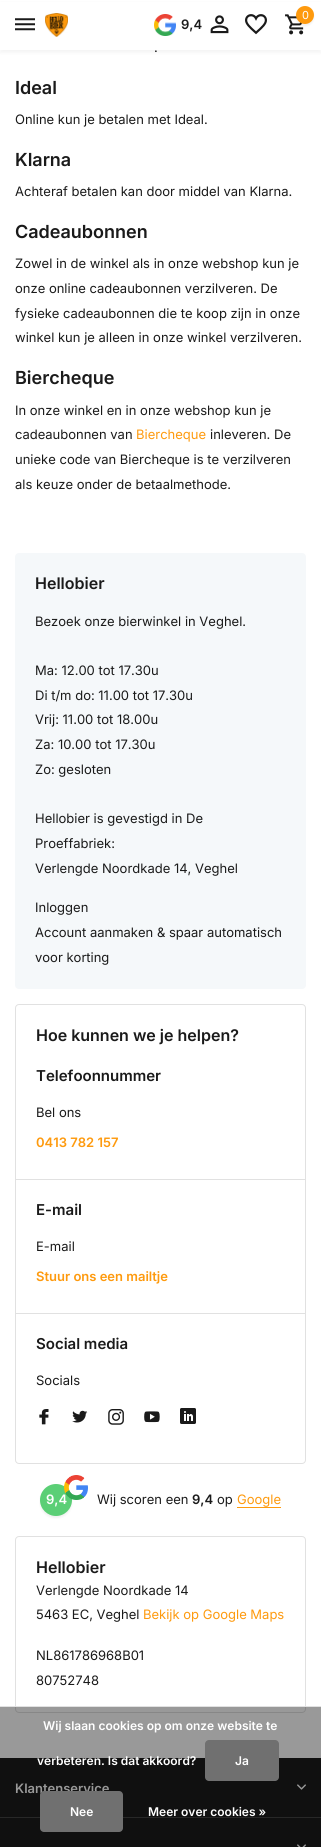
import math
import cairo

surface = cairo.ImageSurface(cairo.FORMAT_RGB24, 321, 1847)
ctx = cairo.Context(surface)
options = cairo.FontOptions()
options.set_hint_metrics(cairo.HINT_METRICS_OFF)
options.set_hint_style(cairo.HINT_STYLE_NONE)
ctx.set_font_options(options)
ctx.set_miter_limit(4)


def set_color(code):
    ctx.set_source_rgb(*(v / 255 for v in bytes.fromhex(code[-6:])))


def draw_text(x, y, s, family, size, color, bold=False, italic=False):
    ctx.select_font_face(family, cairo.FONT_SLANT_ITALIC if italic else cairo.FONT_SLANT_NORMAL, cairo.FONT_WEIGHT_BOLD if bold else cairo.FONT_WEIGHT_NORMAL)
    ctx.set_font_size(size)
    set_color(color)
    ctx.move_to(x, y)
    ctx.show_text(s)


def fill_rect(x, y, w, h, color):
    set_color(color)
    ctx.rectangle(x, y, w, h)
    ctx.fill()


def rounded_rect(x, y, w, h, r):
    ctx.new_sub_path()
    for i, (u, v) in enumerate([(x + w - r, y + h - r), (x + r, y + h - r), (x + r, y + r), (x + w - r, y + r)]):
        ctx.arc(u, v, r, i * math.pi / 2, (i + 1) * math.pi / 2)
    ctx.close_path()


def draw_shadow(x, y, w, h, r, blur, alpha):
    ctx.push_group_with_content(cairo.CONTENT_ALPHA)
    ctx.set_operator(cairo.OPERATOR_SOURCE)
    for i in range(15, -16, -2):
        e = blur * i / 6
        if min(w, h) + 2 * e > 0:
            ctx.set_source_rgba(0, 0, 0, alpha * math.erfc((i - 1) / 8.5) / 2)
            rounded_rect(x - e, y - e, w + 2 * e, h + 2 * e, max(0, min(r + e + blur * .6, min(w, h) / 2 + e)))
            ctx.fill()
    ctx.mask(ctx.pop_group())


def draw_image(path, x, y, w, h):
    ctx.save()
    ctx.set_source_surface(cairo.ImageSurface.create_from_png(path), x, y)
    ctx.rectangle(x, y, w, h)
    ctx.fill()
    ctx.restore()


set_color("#ffffff")
ctx.paint()
set_color("#000000")
draw_shadow(0, 3, 321, 50, 0, 1.5, 0.04)
fill_rect(0, 2, 321, 48, "#ffffff")
draw_image("assets/img1.png", 15, 18, 20, 13)
draw_image("assets/img2.png", 45, 13, 23, 24)
draw_image("assets/img3.png", 154, 14, 22, 22)
draw_text(181, 29, "9,4", "Inter SemiBold", 13, "#1a1a1a")
draw_image("assets/img4.png", 210, 15, 19, 19)
draw_image("assets/img5.png", 245, 14, 22, 21)
draw_image("assets/img6.png", 285, 14, 19, 21)
set_color("#000000")
draw_shadow(296, 8, 18, 18, 9, 1, 0.06)
set_color("#fe9a0e")
ctx.arc(305, 15, 9, 0, 2 * math.pi)
ctx.fill()
draw_text(302, 19, "0", "Inter", 11, "#ffffff")
draw_text(154, 52, ".", "Inter", 13, "#1a1a1a")
draw_text(15, 94, "Ideal", "Inter SemiBold", 18, "#1a1a1a")
draw_text(15, 124, "Online kun je betalen met Ideal.", "Inter", 13, "#1a1a1a")
draw_text(15, 166, "Klarna", "Inter SemiBold", 18, "#1a1a1a")
draw_text(15, 196, "Achteraf betalen kan door middel van Klarna.", "Inter", 13, "#1a1a1a")
draw_text(15, 238, "Cadeaubonnen", "Inter SemiBold", 18, "#1a1a1a")
draw_text(15, 268, "Zowel in de winkel als in onze webshop kun je", "Inter", 13, "#1a1a1a")
draw_text(15, 293, "onze online cadeaubonnen verzilveren. De", "Inter", 13, "#1a1a1a")
draw_text(15, 318, "fysieke cadeaubonnen die te koop zijn in onze", "Inter", 13, "#1a1a1a")
draw_text(15, 342, "winkel kun je alleen in onze winkel verzilveren.", "Inter", 13, "#1a1a1a")
draw_text(15, 384, "Biercheque", "Inter SemiBold", 18, "#1a1a1a")
draw_text(15, 415, "In onze winkel en in onze webshop kun je", "Inter", 13, "#1a1a1a")
draw_text(15, 439, "cadeaubonnen van", "Inter", 13, "#1a1a1a")
draw_text(136, 439, "Biercheque", "Inter", 13, "#fe9a0e")
draw_text(210, 439, "inleveren. De", "Inter", 13, "#1a1a1a")
draw_text(15, 464, "unieke code van Biercheque is te verzilveren", "Inter", 13, "#1a1a1a")
draw_text(15, 489, "als keuze onder de betaalmethode.", "Inter", 13, "#1a1a1a")
set_color("#f5f8fa")
rounded_rect(15, 553, 291, 436, 4)
ctx.fill()
draw_text(35, 589, "Hellobier", "Inter SemiBold", 16, "#1a1a1a")
draw_text(35, 626, "Bezoek onze bierwinkel in Veghel.", "Inter", 13, "#1a1a1a")
draw_text(35, 675, "Ma: 12.00 tot 17.30u", "Inter", 13, "#1a1a1a")
draw_text(35, 700, "Di t/m do: 11.00 tot 17.30u", "Inter", 13, "#1a1a1a")
draw_text(35, 724, "Vrij: 11.00 tot 18.00u", "Inter", 13, "#1a1a1a")
draw_text(35, 749, "Za: 10.00 tot 17.30u", "Inter", 13, "#1a1a1a")
draw_text(35, 774, "Zo: gesloten", "Inter", 13, "#1a1a1a")
draw_text(35, 823, "Hellobier is gevestigd in De", "Inter", 13, "#1a1a1a")
draw_text(35, 848, "Proeffabriek:", "Inter", 13, "#1a1a1a")
draw_text(35, 873, "Verlengde Noordkade 14, Veghel", "Inter", 13, "#1a1a1a")
draw_text(35, 912, "Inloggen", "Inter", 13, "#1a1a1a")
draw_text(35, 937, "Account aanmaken & spaar automatisch", "Inter", 13, "#1a1a1a")
draw_text(35, 962, "voor korting", "Inter", 13, "#1a1a1a")
rounded_rect(15.5, 1004.5, 290, 459, 3.5)
set_color("#e1e1e1")
ctx.set_line_width(1)
ctx.stroke()
draw_text(36, 1041, "Hoe kunnen we je helpen?", "Inter SemiBold", 16, "#1a1a1a")
fill_rect(16, 1179, 289, 1, "#e1e1e1")
draw_text(36, 1081, "Telefoonnummer", "Inter SemiBold", 15, "#1a1a1a")
draw_text(36, 1117, "Bel ons", "Inter", 13, "#1a1a1a")
draw_text(36, 1147, "0413 782 157", "Inter SemiBold", 13, "#fe9a0e")
fill_rect(16, 1313, 289, 1, "#e1e1e1")
draw_text(36, 1215, "E-mail", "Inter SemiBold", 15, "#1a1a1a")
draw_text(36, 1251, "E-mail", "Inter", 13, "#1a1a1a")
draw_text(36, 1281, "Stuur ons een mailtje", "Inter SemiBold", 13, "#fe9a0e")
draw_text(36, 1349, "Social media", "Inter SemiBold", 15, "#1a1a1a")
draw_text(36, 1385, "Socials", "Inter", 13, "#1a1a1a")
draw_image("assets/img7.png", 39, 1409, 10, 16)
draw_image("assets/img8.png", 72, 1410, 16, 13)
draw_image("assets/img9.png", 108, 1409, 16, 16)
draw_image("assets/img10.png", 144, 1411, 16, 12)
draw_image("assets/img11.png", 180, 1408, 16, 16)
set_color("#000000")
draw_shadow(40, 1486, 32, 32, 16, 1, 0.06)
set_color("#5bcf76")
ctx.arc(56, 1500, 16, 0, 2 * math.pi)
ctx.fill()
draw_text(46, 1504, "9,4", "Inter SemiBold", 13, "#ffffff")
draw_image("assets/img12.png", 64, 1475, 24, 25)
draw_text(97, 1504, "Wij scoren een", "Inter", 13, "#1a1a1a")
draw_text(192, 1504, "9,4", "Inter SemiBold", 13, "#1a1a1a")
draw_text(217, 1504, "op", "Inter", 13, "#1a1a1a")
draw_text(237, 1504, "Google", "Inter", 13, "#fe9a0e")
fill_rect(237, 1507, 44, 1, "#fe9a0e")
rounded_rect(15.5, 1536.5, 290, 176, 3.5)
set_color("#e1e1e1")
ctx.stroke()
draw_text(36, 1573, "Hellobier", "Inter SemiBold", 16, "#1a1a1a")
draw_text(36, 1595, "Verlengde Noordkade 14", "Inter", 13, "#1a1a1a")
draw_text(36, 1619, "5463 EC, Veghel", "Inter", 13, "#1a1a1a")
draw_text(143, 1619, "Bekijk op Google Maps", "Inter", 13, "#fe9a0e")
draw_text(36, 1660, "NL861786968B01", "Inter", 13, "#1a1a1a")
draw_text(36, 1685, "80752748", "Inter", 13, "#1a1a1a")
fill_rect(0, 1758, 321, 89, "#1a1a1a")
draw_text(15, 1793, "Klantenservice", "Inter SemiBold", 13, "#ffffff")
draw_image("assets/img13.png", 297, 1784, 9, 6)
fill_rect(0, 1817, 321, 1, "#424242")
draw_image("assets/img14.png", 297, 1844, 9, 3)
ctx.set_source_rgba(0, 0, 0, 0.4)
ctx.rectangle(0, 1707, 321, 140)
ctx.fill()
fill_rect(0, 1706, 321, 1, "#e1e1e1")
draw_text(43, 1730, "Wij slaan cookies op om onze website te", "Inter SemiBold", 12, "#ffffff")
draw_text(37, 1765, "verbeteren. Is dat akkoord?", "Inter SemiBold", 12, "#ffffff")
set_color("#707070")
rounded_rect(205, 1740, 74, 41, 4)
ctx.fill()
draw_text(235, 1765, "Ja", "Inter SemiBold", 12, "#ffffff")
set_color("#707070")
rounded_rect(40, 1791, 83, 41, 4)
ctx.fill()
draw_text(70, 1816, "Nee", "Inter SemiBold", 12, "#ffffff")
draw_text(148, 1816, "Meer over cookies »", "Inter SemiBold", 12, "#ffffff")
surface.write_to_png("output.png")
